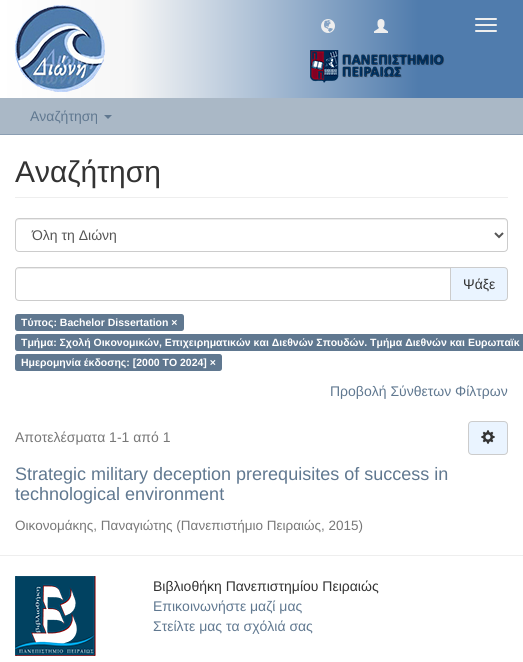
import math
import cairo

surface = cairo.ImageSurface(cairo.FORMAT_RGB24, 523, 662)
ctx = cairo.Context(surface)
options = cairo.FontOptions()
options.set_hint_metrics(cairo.HINT_METRICS_OFF)
options.set_hint_style(cairo.HINT_STYLE_NONE)
ctx.set_font_options(options)
ctx.set_miter_limit(4)


def set_color(code):
    ctx.set_source_rgb(*(v / 255 for v in bytes.fromhex(code[-6:])))


def draw_text(x, y, s, family, size, color, bold=False, italic=False):
    ctx.select_font_face(family, cairo.FONT_SLANT_ITALIC if italic else cairo.FONT_SLANT_NORMAL, cairo.FONT_WEIGHT_BOLD if bold else cairo.FONT_WEIGHT_NORMAL)
    ctx.set_font_size(size)
    set_color(color)
    ctx.move_to(x, y)
    ctx.show_text(s)


def fill_rect(x, y, w, h, color):
    set_color(color)
    ctx.rectangle(x, y, w, h)
    ctx.fill()


def rounded_rect(x, y, w, h, r):
    ctx.new_sub_path()
    for i, (u, v) in enumerate([(x + w - r, y + h - r), (x + r, y + h - r), (x + r, y + r), (x + w - r, y + r)]):
        ctx.arc(u, v, r, i * math.pi / 2, (i + 1) * math.pi / 2)
    ctx.close_path()


def draw_image(path, x, y, w, h):
    ctx.save()
    ctx.set_source_surface(cairo.ImageSurface.create_from_png(path), x, y)
    ctx.rectangle(x, y, w, h)
    ctx.fill()
    ctx.restore()


set_color("#aab8c6")
ctx.paint()
gradient = cairo.LinearGradient(0, 49, 523, 49)
gradient.add_color_stop_rgba(0, 1, 1, 1, 1)
gradient.add_color_stop_rgba(0.25, 0.965, 0.965, 0.965, 1)
gradient.add_color_stop_rgba(0.8, 0.314, 0.486, 0.678, 1)
ctx.set_source(gradient)
ctx.rectangle(0, 0, 523, 98)
ctx.fill()
draw_image("assets/img1.png", 15, 5, 90, 87)
draw_image("assets/img2.png", 321, 19, 14, 14)
draw_image("assets/img3.png", 374, 19, 14, 14)
draw_image("assets/img4.png", 310, 50, 135, 33)
set_color("#eeeeee")
rounded_rect(475, 18, 22, 2, 1)
ctx.fill()
rounded_rect(475, 24, 22, 2, 1)
ctx.fill()
rounded_rect(475, 30, 22, 2, 1)
ctx.fill()
fill_rect(0, 134, 523, 1, "#8b9eb2")
draw_text(30, 121, "Αναζήτηση", "Liberation Sans", 14, "#607890")
ctx.new_path()
ctx.move_to(104, 115)
ctx.line_to(112, 115)
ctx.line_to(108, 119)
ctx.close_path()
ctx.fill()
fill_rect(0, 135, 523, 527, "#ffffff")
fill_rect(15, 197, 493, 1, "#eeeeee")
draw_text(15, 182, "Αναζήτηση", "Liberation Sans", 30, "#333333")
set_color("#ececec")
ctx.new_path()
ctx.move_to(19, 220)
ctx.line_to(504, 220)
ctx.curve_to(506, 220, 507, 221, 507, 223)
ctx.line_to(507, 222)
ctx.curve_to(507, 220, 506, 219, 504, 219)
ctx.line_to(19, 219)
ctx.curve_to(17, 219, 16, 220, 16, 222)
ctx.line_to(16, 223)
ctx.curve_to(16, 221, 17, 220, 19, 220)
ctx.close_path()
ctx.fill()
rounded_rect(15.5, 218.5, 492, 33, 3.5)
set_color("#cccccc")
ctx.set_line_width(1)
ctx.stroke()
ctx.new_path()
ctx.move_to(495, 233)
ctx.line_to(499, 237)
ctx.line_to(503, 233)
set_color("#555555")
ctx.set_line_width(2)
ctx.stroke()
draw_text(32, 240, "Όλη τη Διώνη", "Liberation Sans", 14, "#555555")
set_color("#eaf4ff")
ctx.new_path()
ctx.move_to(450.5, 267.5)
ctx.line_to(504, 267.5)
ctx.curve_to(506, 267.5, 507.5, 269, 507.5, 271)
ctx.line_to(507.5, 297)
ctx.curve_to(507.5, 299, 506, 300.5, 504, 300.5)
ctx.line_to(450.5, 300.5)
ctx.close_path()
ctx.fill_preserve()
set_color("#cccccc")
ctx.set_line_width(1)
ctx.stroke()
set_color("#ffffff")
ctx.new_path()
ctx.move_to(19, 267)
ctx.line_to(451, 267)
ctx.line_to(451, 301)
ctx.line_to(19, 301)
ctx.curve_to(17, 301, 15, 299, 15, 297)
ctx.line_to(15, 271)
ctx.curve_to(15, 269, 17, 267, 19, 267)
ctx.close_path()
ctx.fill()
set_color("#ececec")
ctx.new_path()
ctx.move_to(19, 269)
ctx.line_to(450, 269)
ctx.line_to(450, 268)
ctx.line_to(19, 268)
ctx.curve_to(17, 268, 16, 270, 16, 272)
ctx.curve_to(16, 270, 17, 269, 19, 269)
ctx.close_path()
ctx.fill()
ctx.new_path()
ctx.move_to(19, 267.5)
ctx.line_to(450.5, 267.5)
ctx.line_to(450.5, 300.5)
ctx.line_to(19, 300.5)
ctx.curve_to(17, 300.5, 15.5, 299, 15.5, 297)
ctx.line_to(15.5, 271)
ctx.curve_to(15.5, 269, 17, 267.5, 19, 267.5)
ctx.close_path()
set_color("#cccccc")
ctx.stroke()
draw_text(463, 289, "Ψάξε", "Liberation Sans", 14, "#333333")
set_color("#607890")
rounded_rect(15, 314, 169, 17, 2.5)
ctx.fill()
draw_text(21, 326, "Τύπος: Bachelor Dissertation ×", "Liberation Sans", 10.5, "#ffffff", bold=True)
set_color("#607890")
ctx.new_path()
ctx.move_to(17.5, 334)
ctx.line_to(523, 334)
ctx.line_to(523, 351)
ctx.line_to(17.5, 351)
ctx.curve_to(16, 351, 15, 350, 15, 348.5)
ctx.line_to(15, 336.5)
ctx.curve_to(15, 335, 16, 334, 17.5, 334)
ctx.close_path()
ctx.fill()
draw_text(21, 346, "Τμήμα: Σχολή Οικονομικών, Επιχειρηματικών και Διεθνών Σπουδών. Τμήμα Διεθνών και Ευρωπαϊκ", "Liberation Sans", 10.5, "#ffffff", bold=True)
set_color("#607890")
rounded_rect(15, 354, 207, 17, 2.5)
ctx.fill()
draw_text(21, 366, "Ημερομηνία έκδοσης: [2000 TO 2024] ×", "Liberation Sans", 10.5, "#ffffff", bold=True)
draw_text(330, 396, "Προβολή Σύνθετων Φίλτρων", "Liberation Sans", 14, "#607890")
draw_text(15, 442, "Αποτελέσματα 1-1 από 1", "Liberation Sans", 14, "#777777")
set_color("#eaf4ff")
rounded_rect(468.5, 421.5, 39, 33, 3.5)
ctx.fill_preserve()
set_color("#cccccc")
ctx.stroke()
draw_image("assets/img5.png", 481, 430, 14, 14)
draw_text(15, 480, "Strategic military deception prerequisites of success in", "Liberation Sans", 18, "#607890")
draw_text(15, 500, "technological environment", "Liberation Sans", 18, "#607890")
draw_text(15, 530, "Οικονομάκης, Παναγιώτης (Πανεπιστήμιο Πειραιώς, 2015)", "Liberation Sans", 13.5, "#777777")
fill_rect(0, 555, 523, 1, "#eeeeee")
draw_image("assets/img6.png", 15, 576, 81, 80)
draw_text(153, 591, "Βιβλιοθήκη Πανεπιστημίου Πειραιώς", "Liberation Sans", 14, "#333333")
draw_text(153, 611, "Επικοινωνήστε μαζί μας", "Liberation Sans", 14, "#607890")
draw_text(153, 631, "Στείλτε μας τα σχόλιά σας", "Liberation Sans", 14, "#607890")
surface.write_to_png("output.png")
